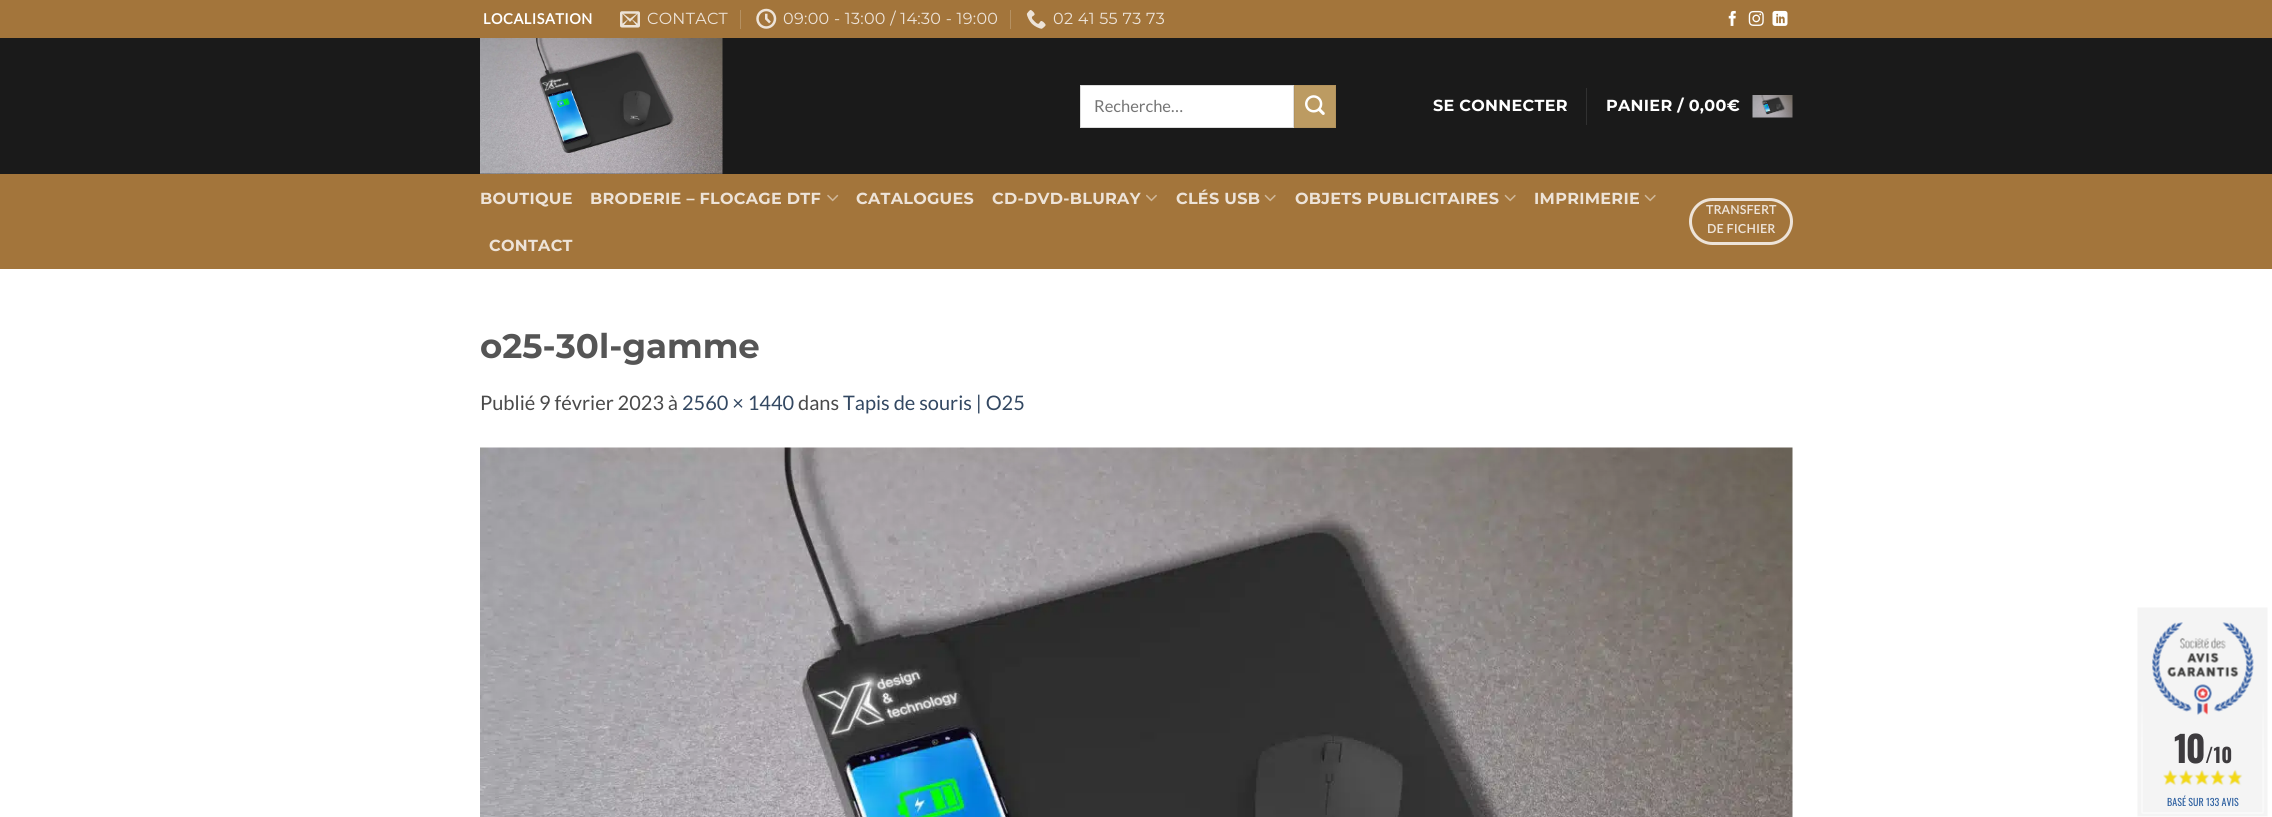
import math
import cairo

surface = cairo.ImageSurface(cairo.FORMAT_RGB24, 2272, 817)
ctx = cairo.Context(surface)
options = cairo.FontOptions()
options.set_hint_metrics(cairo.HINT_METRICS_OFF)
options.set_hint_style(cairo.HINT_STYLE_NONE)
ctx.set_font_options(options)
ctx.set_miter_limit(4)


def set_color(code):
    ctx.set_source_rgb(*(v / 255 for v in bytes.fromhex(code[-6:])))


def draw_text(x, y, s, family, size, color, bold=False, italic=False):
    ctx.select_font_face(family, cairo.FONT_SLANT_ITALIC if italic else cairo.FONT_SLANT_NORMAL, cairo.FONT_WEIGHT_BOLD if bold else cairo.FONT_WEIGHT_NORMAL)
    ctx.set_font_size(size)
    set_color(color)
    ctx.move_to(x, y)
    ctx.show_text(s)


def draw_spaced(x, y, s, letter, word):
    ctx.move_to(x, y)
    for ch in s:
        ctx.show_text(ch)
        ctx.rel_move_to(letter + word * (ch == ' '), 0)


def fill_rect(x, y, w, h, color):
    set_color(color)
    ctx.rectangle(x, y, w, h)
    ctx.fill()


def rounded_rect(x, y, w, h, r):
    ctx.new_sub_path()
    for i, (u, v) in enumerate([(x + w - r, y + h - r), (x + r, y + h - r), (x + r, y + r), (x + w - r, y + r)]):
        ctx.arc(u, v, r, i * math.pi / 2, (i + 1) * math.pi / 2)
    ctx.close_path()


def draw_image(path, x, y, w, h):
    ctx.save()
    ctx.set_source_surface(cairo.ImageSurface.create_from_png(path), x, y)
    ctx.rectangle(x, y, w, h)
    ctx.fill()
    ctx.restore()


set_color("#ffffff")
ctx.paint()
fill_rect(0, 0, 2272, 38, "#a3753b")
ctx.select_font_face("Lato", cairo.FONT_SLANT_NORMAL, cairo.FONT_WEIGHT_BOLD)
ctx.set_font_size(14.5)
set_color("#ffffff")
draw_spaced(483, 24, "LOCALISATION", 0.5, 0)
draw_image("assets/img1.png", 620, 11, 20, 17)
ctx.select_font_face("Montserrat")
ctx.set_font_size(16)
set_color("#ede3d8")
draw_spaced(647, 24, "CONTACT", 0.3, 0)
fill_rect(740, 10, 1, 19, "#b59162")
draw_image("assets/img2.png", 756, 8, 21, 21)
set_color("#ede3d8")
draw_spaced(783, 24, "09:00 - 13:00 / 14:30 - 19:00", 0.3, 0)
fill_rect(1010, 10, 1, 19, "#b59162")
draw_image("assets/img3.png", 1026, 10, 20, 19)
set_color("#ede3d8")
draw_spaced(1053, 24, "02 41 55 73 73", 0.3, 0)
draw_image("assets/img4.png", 1728, 10, 8, 16)
draw_image("assets/img5.png", 1748, 10, 16, 16)
draw_image("assets/img6.png", 1772, 10, 16, 16)
fill_rect(0, 38, 2272, 136, "#1a1a1a")
draw_image("assets/img7.png", 480, 38, 243, 136)
set_color("#ffffff")
ctx.rectangle(1080.5, 85.5, 213, 42)
ctx.fill_preserve()
set_color("#dddddd")
ctx.set_line_width(1)
ctx.stroke()
draw_text(1094, 112, "Recherche…", "Lato", 16.5, "#757575")
set_color("#bc9b62")
ctx.rectangle(1294.5, 85.5, 41, 42)
ctx.fill_preserve()
set_color("#b3935d")
ctx.stroke()
draw_image("assets/img8.png", 1305, 95, 20, 20)
ctx.select_font_face("Montserrat", cairo.FONT_SLANT_NORMAL, cairo.FONT_WEIGHT_BOLD)
ctx.set_font_size(16)
set_color("#ffffff")
draw_spaced(1433, 111, "SE CONNECTER", 0.3, 0)
fill_rect(1586, 88, 1, 37, "#313131")
set_color("#ffffff")
draw_spaced(1606, 111, "PANIER / 0,00€", 0.3, 0)
draw_image("assets/img9.png", 1752, 95, 41, 23)
fill_rect(0, 174, 2272, 95, "#a3753b")
set_color("#ede3d8")
draw_spaced(480, 204, "BOUTIQUE", 0.3, 0)
draw_spaced(590, 204, "BRODERIE – FLOCAGE DTF", 0.3, 0)
draw_image("assets/img10.png", 827, 194, 12, 8)
draw_spaced(856, 204, "CATALOGUES", 0.3, 0)
draw_spaced(992, 204, "CD-DVD-BLURAY", 0.3, 0)
draw_image("assets/img11.png", 1146, 194, 11, 8)
draw_spaced(1176, 204, "CLÉS USB", 0.3, 0)
draw_image("assets/img12.png", 1264, 194, 12, 8)
draw_spaced(1295, 204, "OBJETS PUBLICITAIRES", 0.3, 0)
draw_image("assets/img12.png", 1504, 194, 12, 8)
draw_spaced(1534, 204, "IMPRIMERIE", 0.3, 0)
draw_image("assets/img12.png", 1644, 194, 12, 8)
draw_spaced(489, 251, "CONTACT", 0.3, 0)
rounded_rect(1690.5, 199.5, 101, 44, 22)
ctx.set_line_width(3)
ctx.stroke()
ctx.select_font_face("Lato", cairo.FONT_SLANT_NORMAL, cairo.FONT_WEIGHT_BOLD)
ctx.set_font_size(12)
draw_spaced(1706, 214, "TRANSFERT", 0.4, 0)
draw_spaced(1707, 233, "DE FICHIER", 0.4, 0)
draw_text(480, 358, "o25-30l-gamme", "Montserrat", 34, "#555555", bold=True)
draw_text(480, 410, "Publié 9 février 2023 à", "Lato", 20, "#4a4a4a")
draw_text(682, 410, "2560 × 1440", "Lato", 20, "#334862")
draw_text(798, 410, "dans", "Lato", 20, "#4a4a4a")
draw_text(843, 410, "Tapis de souris | O25", "Lato", 20, "#334862")
draw_image("assets/img13.png", 480, 447, 1313, 370)
draw_image("assets/img14.png", 2137, 607, 131, 210)
ctx.select_font_face("Oswald", cairo.FONT_SLANT_NORMAL, cairo.FONT_WEIGHT_BOLD)
ctx.set_font_size(36)
set_color("#3d3b3e")
draw_spaced(2174, 763, "10", -2, 0)
draw_text(2205, 763, "/10", "Oswald", 20, "#3d3b3e", bold=True)
draw_image("assets/img15.png", 2163, 770, 79, 15)
draw_text(2167, 806, "BASÉ SUR 133 AVIS", "Oswald", 10, "#2f61a1")
surface.write_to_png("output.png")
